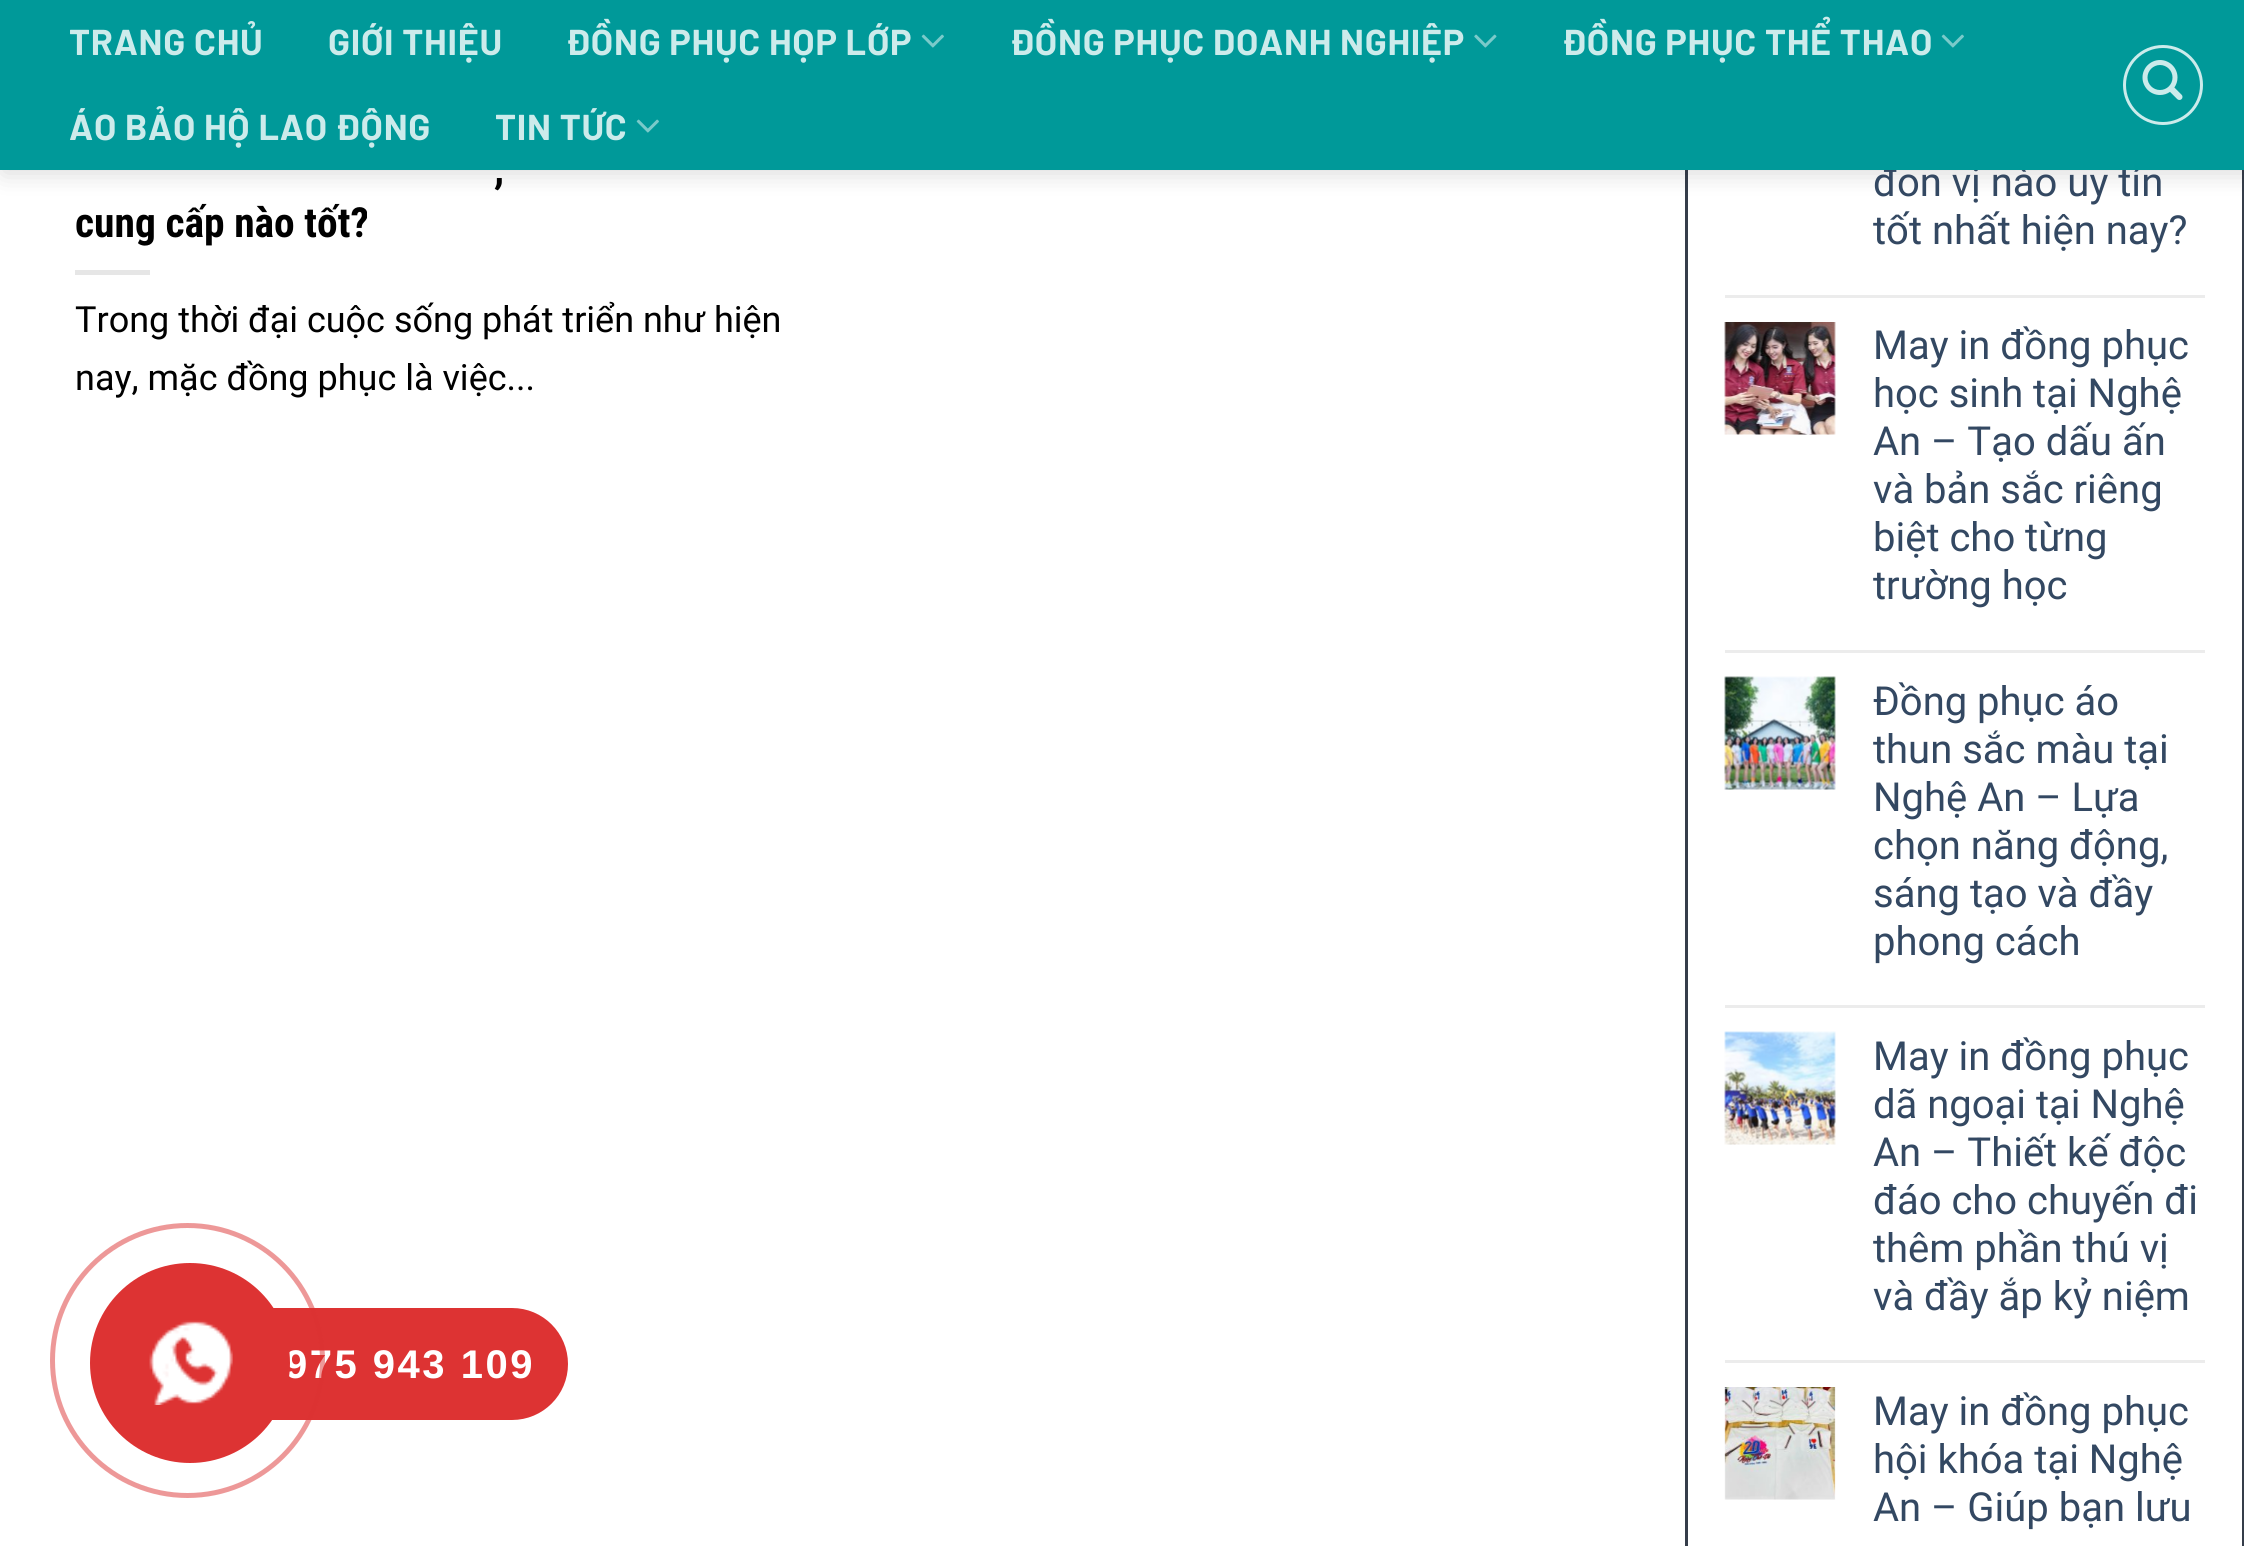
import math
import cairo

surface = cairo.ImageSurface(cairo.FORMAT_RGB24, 2244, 1546)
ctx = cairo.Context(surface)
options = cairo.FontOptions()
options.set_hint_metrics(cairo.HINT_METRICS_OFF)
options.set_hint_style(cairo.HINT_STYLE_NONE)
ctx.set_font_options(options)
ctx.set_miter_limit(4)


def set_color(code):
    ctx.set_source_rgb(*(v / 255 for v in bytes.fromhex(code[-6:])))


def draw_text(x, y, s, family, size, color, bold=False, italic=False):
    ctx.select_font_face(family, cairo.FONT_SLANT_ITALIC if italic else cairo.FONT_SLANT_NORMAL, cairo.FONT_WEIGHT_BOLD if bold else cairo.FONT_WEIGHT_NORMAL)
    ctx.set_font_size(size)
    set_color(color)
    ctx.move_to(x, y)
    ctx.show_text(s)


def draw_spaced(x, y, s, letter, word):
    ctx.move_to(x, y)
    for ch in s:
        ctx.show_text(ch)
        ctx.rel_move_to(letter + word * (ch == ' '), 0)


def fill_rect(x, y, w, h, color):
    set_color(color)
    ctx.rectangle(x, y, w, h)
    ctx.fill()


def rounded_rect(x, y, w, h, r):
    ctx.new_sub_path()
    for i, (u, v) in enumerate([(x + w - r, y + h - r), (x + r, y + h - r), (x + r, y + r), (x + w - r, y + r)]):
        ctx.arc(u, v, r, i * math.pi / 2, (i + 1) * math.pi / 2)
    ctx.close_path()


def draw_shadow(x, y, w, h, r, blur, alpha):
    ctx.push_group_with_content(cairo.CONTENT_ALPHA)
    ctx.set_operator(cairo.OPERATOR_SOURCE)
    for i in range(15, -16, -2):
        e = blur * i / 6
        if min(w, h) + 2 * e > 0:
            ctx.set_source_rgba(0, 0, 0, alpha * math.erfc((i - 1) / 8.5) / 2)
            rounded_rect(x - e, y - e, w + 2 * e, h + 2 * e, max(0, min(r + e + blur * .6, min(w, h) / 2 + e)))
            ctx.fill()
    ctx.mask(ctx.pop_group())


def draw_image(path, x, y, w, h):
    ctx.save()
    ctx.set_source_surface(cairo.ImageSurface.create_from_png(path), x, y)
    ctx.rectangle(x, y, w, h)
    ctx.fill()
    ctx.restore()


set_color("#ffffff")
ctx.paint()
ctx.rectangle(1686.5, -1.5, 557, 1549)
set_color("#353d4a")
ctx.set_line_width(3)
ctx.stroke()
set_color("#000000")
draw_shadow(3, 3, 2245, 170, 0, 12.5, 0.15)
draw_text(1873, 196, "đon vị nào uy tín", "Roboto", 40, "#334862")
fill_rect(0, 0, 2244, 170, "#009999")
ctx.select_font_face("Barlow", cairo.FONT_SLANT_NORMAL, cairo.FONT_WEIGHT_BOLD)
ctx.set_font_size(36)
set_color("#ccebeb")
draw_spaced(69, 55, "TRANG CHỦ", 0.75, 0)
draw_spaced(328, 55, "GIỚI THIỆU", 0.75, 0)
draw_spaced(566, 55, "ĐỒNG PHỤC HỌP LỚP", 0.75, 0)
draw_image("assets/img1.png", 921, 34, 23, 14)
draw_spaced(1010, 55, "ĐỒNG PHỤC DOANH NGHIỆP", 0.75, 0)
draw_image("assets/img2.png", 1474, 34, 23, 14)
draw_spaced(1562, 55, "ĐỒNG PHỤC THỂ THAO", 0.75, 0)
draw_image("assets/img1.png", 1941, 34, 23, 14)
draw_spaced(69, 140, "ÁO BẢO HỘ LAO ĐỘNG", 0.75, 0)
draw_spaced(495, 140, "TIN TỨC", 0.75, 0)
draw_image("assets/img1.png", 636, 119, 23, 14)
ctx.arc(2163, 85, 38.5, 0, 2 * math.pi)
ctx.stroke()
draw_image("assets/img3.png", 2142, 60, 41, 40)
draw_text(494, 183, ",", "Roboto Condensed", 41.5, "#000000", bold=True)
draw_text(75, 237, "cung cấp nào tốt?", "Roboto Condensed", 41.5, "#000000", bold=True)
fill_rect(75, 270, 75, 5, "#e6e6e6")
draw_text(75, 332, "Trong thời đại cuộc sống phát triển như hiện", "Roboto", 36, "#000000")
draw_text(75, 390, "nay, mặc đồng phục là việc...", "Roboto", 36, "#000000")
draw_text(1873, 244, "tốt nhất hiện nay?", "Roboto", 40, "#334862")
fill_rect(1725, 295, 480, 3, "#ececec")
draw_image("assets/img4.png", 1724, 322, 112, 113)
draw_text(1873, 359, "May in đồng phục", "Roboto", 40, "#334862")
draw_text(1873, 407, "học sinh tại Nghệ", "Roboto", 40, "#334862")
draw_text(1873, 455, "An – Tạo dấu ấn", "Roboto", 40, "#334862")
draw_text(1873, 503, "và bản sắc riêng", "Roboto", 40, "#334862")
draw_text(1873, 551, "biệt cho từng", "Roboto", 40, "#334862")
draw_text(1873, 599, "trường học", "Roboto", 40, "#334862")
fill_rect(1725, 650, 480, 3, "#ececec")
draw_image("assets/img5.png", 1724, 676, 112, 114)
draw_text(1873, 715, "Đồng phục áo", "Roboto", 40, "#334862")
draw_text(1873, 763, "thun sắc màu tại", "Roboto", 40, "#334862")
draw_text(1873, 811, "Nghệ An – Lựa", "Roboto", 40, "#334862")
draw_text(1873, 859, "chọn năng động,", "Roboto", 40, "#334862")
draw_text(1873, 907, "sáng tạo và đầy", "Roboto", 40, "#334862")
draw_text(1873, 955, "phong cách", "Roboto", 40, "#334862")
fill_rect(1725, 1005, 480, 3, "#ececec")
draw_image("assets/img6.png", 1724, 1031, 112, 114)
draw_text(1873, 1070, "May in đồng phục", "Roboto", 40, "#334862")
draw_text(1873, 1118, "dã ngoại tại Nghệ", "Roboto", 40, "#334862")
draw_text(1873, 1166, "An – Thiết kế độc", "Roboto", 40, "#334862")
draw_text(1873, 1214, "đáo cho chuyến đi", "Roboto", 40, "#334862")
draw_text(1873, 1262, "thêm phần thú vị", "Roboto", 40, "#334862")
draw_text(1873, 1310, "và đầy ắp kỷ niệm", "Roboto", 40, "#334862")
fill_rect(1725, 1360, 480, 3, "#ececec")
draw_image("assets/img7.png", 1724, 1387, 112, 113)
draw_text(1873, 1425, "May in đồng phục", "Roboto", 40, "#334862")
draw_text(1873, 1473, "hội khóa tại Nghệ", "Roboto", 40, "#334862")
draw_text(1873, 1521, "An – Giúp bạn lưu", "Roboto", 40, "#334862")
set_color("#dd3333")
rounded_rect(155, 1308, 413, 112, 56)
ctx.fill()
ctx.select_font_face("Liberation Sans", cairo.FONT_SLANT_NORMAL, cairo.FONT_WEIGHT_BOLD)
set_color("#ffffff")
draw_spaced(285, 1378, "975 943 109", 2.5, 0)
ctx.new_path()
ctx.arc(187.5, 1360.5, 135, 0, 2 * math.pi)
ctx.set_source_rgba(0.867, 0.2, 0.2, 0.5)
ctx.set_line_width(5)
ctx.stroke()
set_color("#dd3333")
ctx.arc(190, 1363, 100, 0, 2 * math.pi)
ctx.fill()
draw_image("assets/img8.png", 149, 1320, 84, 85)
surface.write_to_png("output.png")
